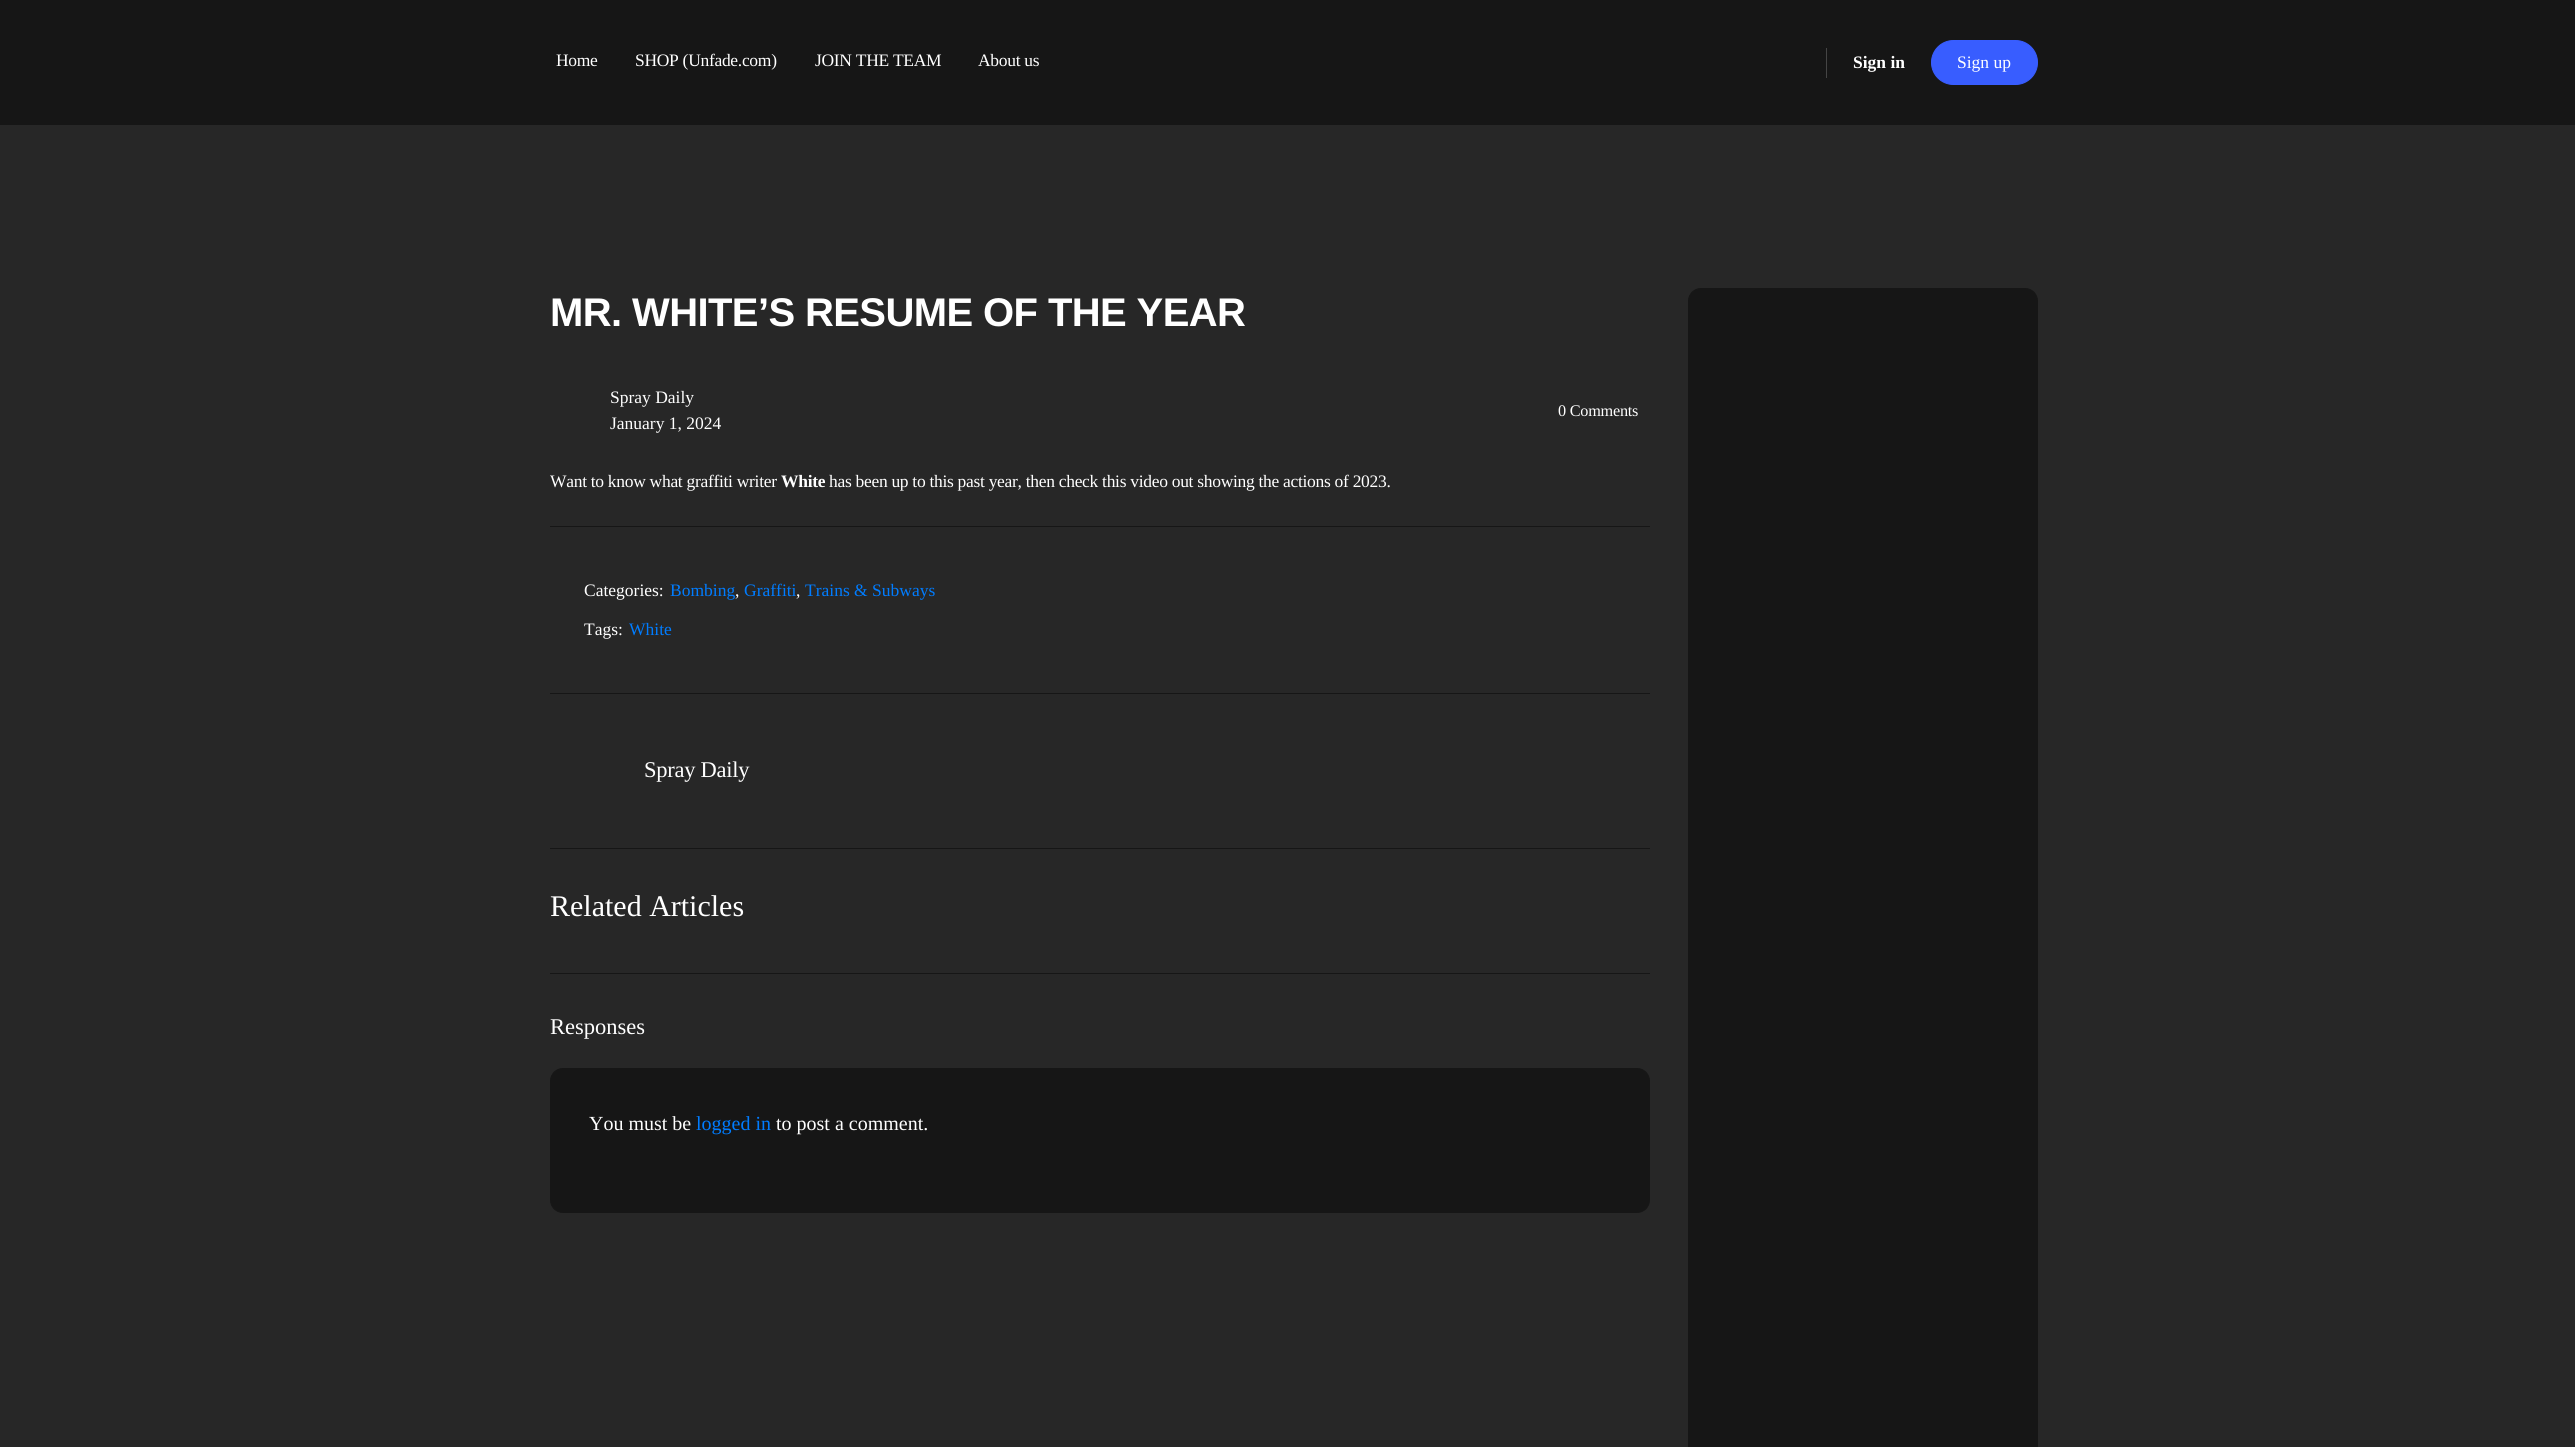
import math
import cairo

surface = cairo.ImageSurface(cairo.FORMAT_RGB24, 2575, 1447)
ctx = cairo.Context(surface)
options = cairo.FontOptions()
options.set_hint_metrics(cairo.HINT_METRICS_OFF)
options.set_hint_style(cairo.HINT_STYLE_NONE)
ctx.set_font_options(options)
ctx.set_miter_limit(4)


def set_color(code):
    ctx.set_source_rgb(*(v / 255 for v in bytes.fromhex(code[-6:])))


def draw_text(x, y, s, family, size, color, bold=False, italic=False):
    ctx.select_font_face(family, cairo.FONT_SLANT_ITALIC if italic else cairo.FONT_SLANT_NORMAL, cairo.FONT_WEIGHT_BOLD if bold else cairo.FONT_WEIGHT_NORMAL)
    ctx.set_font_size(size)
    set_color(color)
    ctx.move_to(x, y)
    ctx.show_text(s)


def draw_spaced(x, y, s, letter, word):
    ctx.move_to(x, y)
    for ch in s:
        ctx.show_text(ch)
        ctx.rel_move_to(letter + word * (ch == ' '), 0)


def fill_rect(x, y, w, h, color):
    set_color(color)
    ctx.rectangle(x, y, w, h)
    ctx.fill()


def rounded_rect(x, y, w, h, r):
    ctx.new_sub_path()
    for i, (u, v) in enumerate([(x + w - r, y + h - r), (x + r, y + h - r), (x + r, y + r), (x + w - r, y + r)]):
        ctx.arc(u, v, r, i * math.pi / 2, (i + 1) * math.pi / 2)
    ctx.close_path()


set_color("#272727")
ctx.paint()
fill_rect(0, 0, 2575, 125, "#161616")
ctx.select_font_face("Liberation Serif")
ctx.set_font_size(17.5)
set_color("#ffffff")
draw_spaced(556, 66, "Home", -0.3, 0)
draw_spaced(635, 66, "SHOP (Unfade.com)", -0.3, 0)
draw_spaced(815, 66, "JOIN THE TEAM", -0.3, 0)
draw_spaced(978, 66, "About us", -0.3, 0)
fill_rect(1826, 48, 1, 30, "#454545")
draw_text(1853, 68, "Sign in", "Liberation Serif", 17.5, "#ffffff", bold=True)
set_color("#385dff")
rounded_rect(1931.5, 40.5, 106, 44, 22)
ctx.fill_preserve()
ctx.set_line_width(1)
ctx.stroke()
draw_text(1957, 68, "Sign up", "Liberation Serif", 17.5, "#ffffff")
ctx.select_font_face("Liberation Sans", cairo.FONT_SLANT_NORMAL, cairo.FONT_WEIGHT_BOLD)
ctx.set_font_size(40)
draw_spaced(550, 326, "MR. WHITE’S RESUME OF THE YEAR", -0.6, 0)
draw_text(610, 403, "Spray Daily", "Liberation Serif", 17.5, "#ffffff")
draw_text(610, 429, "January 1, 2024", "Liberation Serif", 17.5, "#ffffff")
ctx.set_font_size(16.25)
draw_spaced(1558, 416, "0 Comments", -0.25, 0)
ctx.set_font_size(17.5)
draw_spaced(550, 487, "Want to know what graffiti writer", -0.3, 0)
ctx.select_font_face("Liberation Serif", cairo.FONT_SLANT_NORMAL, cairo.FONT_WEIGHT_BOLD)
draw_spaced(781, 487, "White", -0.3, 0)
ctx.select_font_face("Liberation Serif")
draw_spaced(829, 487, "has been up to this past year, then check this video out showing the actions of 2023.", -0.3, 0)
fill_rect(550, 526, 1100, 1, "#161616")
draw_text(584, 596, "Categories:", "Liberation Serif", 17.5, "#ffffff")
draw_text(670, 596, "Bombing", "Liberation Serif", 17.5, "#007cff")
draw_text(735, 596, ",", "Liberation Serif", 17.5, "#ffffff")
draw_text(744, 596, "Graffiti", "Liberation Serif", 17.5, "#007cff")
draw_text(796, 596, ",", "Liberation Serif", 17.5, "#ffffff")
draw_text(805, 596, "Trains & Subways", "Liberation Serif", 17.5, "#007cff")
draw_text(584, 635, "Tags:", "Liberation Serif", 17.5, "#ffffff")
draw_text(629, 635, "White", "Liberation Serif", 17.5, "#007cff")
fill_rect(550, 848, 1100, 1, "#161616")
fill_rect(550, 693, 1100, 1, "#161616")
ctx.set_font_size(22.5)
set_color("#ffffff")
draw_spaced(644, 777, "Spray Daily", -0.25, 0)
fill_rect(550, 973, 1100, 1, "#161616")
draw_text(550, 916, "Related Articles", "Liberation Serif", 30, "#ffffff")
draw_text(550, 1034, "Responses", "Liberation Serif", 22.5, "#ffffff")
set_color("#161616")
rounded_rect(550.5, 1068.5, 1099, 144, 12.5)
ctx.fill_preserve()
ctx.stroke()
draw_text(589, 1130, "You must be", "Liberation Serif", 20, "#ffffff")
draw_text(696, 1130, "logged in", "Liberation Serif", 20, "#007cff")
draw_text(776, 1130, "to post a comment.", "Liberation Serif", 20, "#ffffff")
set_color("#161616")
rounded_rect(1688.5, 288.5, 349, 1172, 12.5)
ctx.fill_preserve()
ctx.stroke()
surface.write_to_png("output.png")
